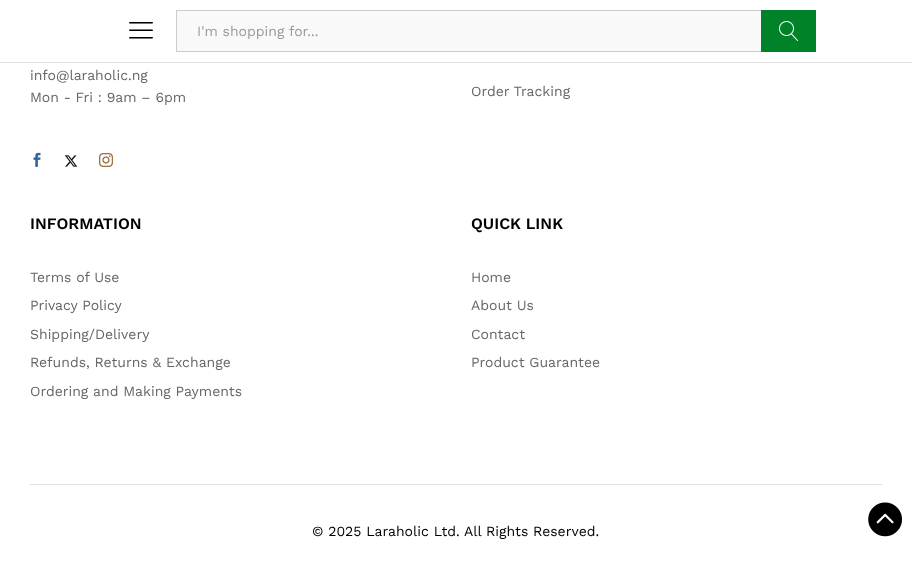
<svg xmlns="http://www.w3.org/2000/svg" width="912" height="562" viewBox="0 0 912 562">
  <rect width="100%" height="100%" fill="rgb(255,255,255)"/>
  <rect x="0" y="62" width="912" height="1" fill="rgb(225,225,225)"/>
  <image x="129" y="22" width="24" height="17" href="pic1.png"/>
  <rect x="177" y="11" width="584" height="40" fill="rgb(249,249,249)"/>
  <rect x="176" y="10" width="585" height="1" fill="rgb(204,204,204)"/>
  <rect x="176" y="51" width="585" height="1" fill="rgb(204,204,204)"/>
  <rect x="176" y="10" width="1" height="42" fill="rgb(204,204,204)"/>
  <text x="197" y="36" font-family="Work Sans" font-size="14" fill="rgb(153,153,153)">I'm shopping for...</text>
  <rect x="761" y="10" width="55" height="42" fill="rgb(0,131,40)"/>
  <image x="779" y="21" width="19" height="20" href="pic2.png"/>
  <g font-family="Work Sans" font-size="14" fill="rgb(102,102,102)">
    <text>
      <tspan x="30" y="80">info@laraholic.ng</tspan>
      <tspan x="30" y="102">Mon - Fri : 9am – 6pm</tspan>
    </text>
  </g>
  <image x="33" y="152" width="8" height="15" href="pic3.png"/>
  <image x="64" y="155" width="14" height="12" href="pic4.png"/>
  <image x="99" y="153" width="14" height="14" href="pic5.png"/>
  <text x="471" y="96" font-family="Work Sans" font-size="14" fill="rgb(102,102,102)">Order Tracking</text>
  <text x="30" y="229" font-family="Work Sans" font-size="16" font-weight="600" fill="rgb(0,0,0)">INFORMATION</text>
  <g font-family="Work Sans" font-size="14" fill="rgb(102,102,102)">
    <text x="30" y="282">Terms of Use</text>
    <text x="30" y="310">Privacy Policy</text>
    <text x="30" y="339">Shipping/Delivery</text>
    <text x="30" y="367">Refunds, Returns &amp; Exchange</text>
    <text x="30" y="396">Ordering and Making Payments</text>
  </g>
  <text x="471" y="229" font-family="Work Sans" font-size="16" font-weight="600" fill="rgb(0,0,0)">QUICK LINK</text>
  <g font-family="Work Sans" font-size="14" fill="rgb(102,102,102)">
    <text x="471" y="282">Home</text>
    <text x="471" y="310">About Us</text>
    <text x="471" y="339">Contact</text>
    <text x="471" y="367">Product Guarantee</text>
  </g>
  <rect x="30" y="484" width="852" height="1" fill="rgb(225,225,225)"/>
  <text x="312" y="536" font-family="Work Sans" font-size="14" fill="rgb(0,0,0)">© 2025 Laraholic Ltd. All Rights Reserved.</text>
  <image x="868" y="502" width="34" height="35" href="pic6.png"/>
</svg>
